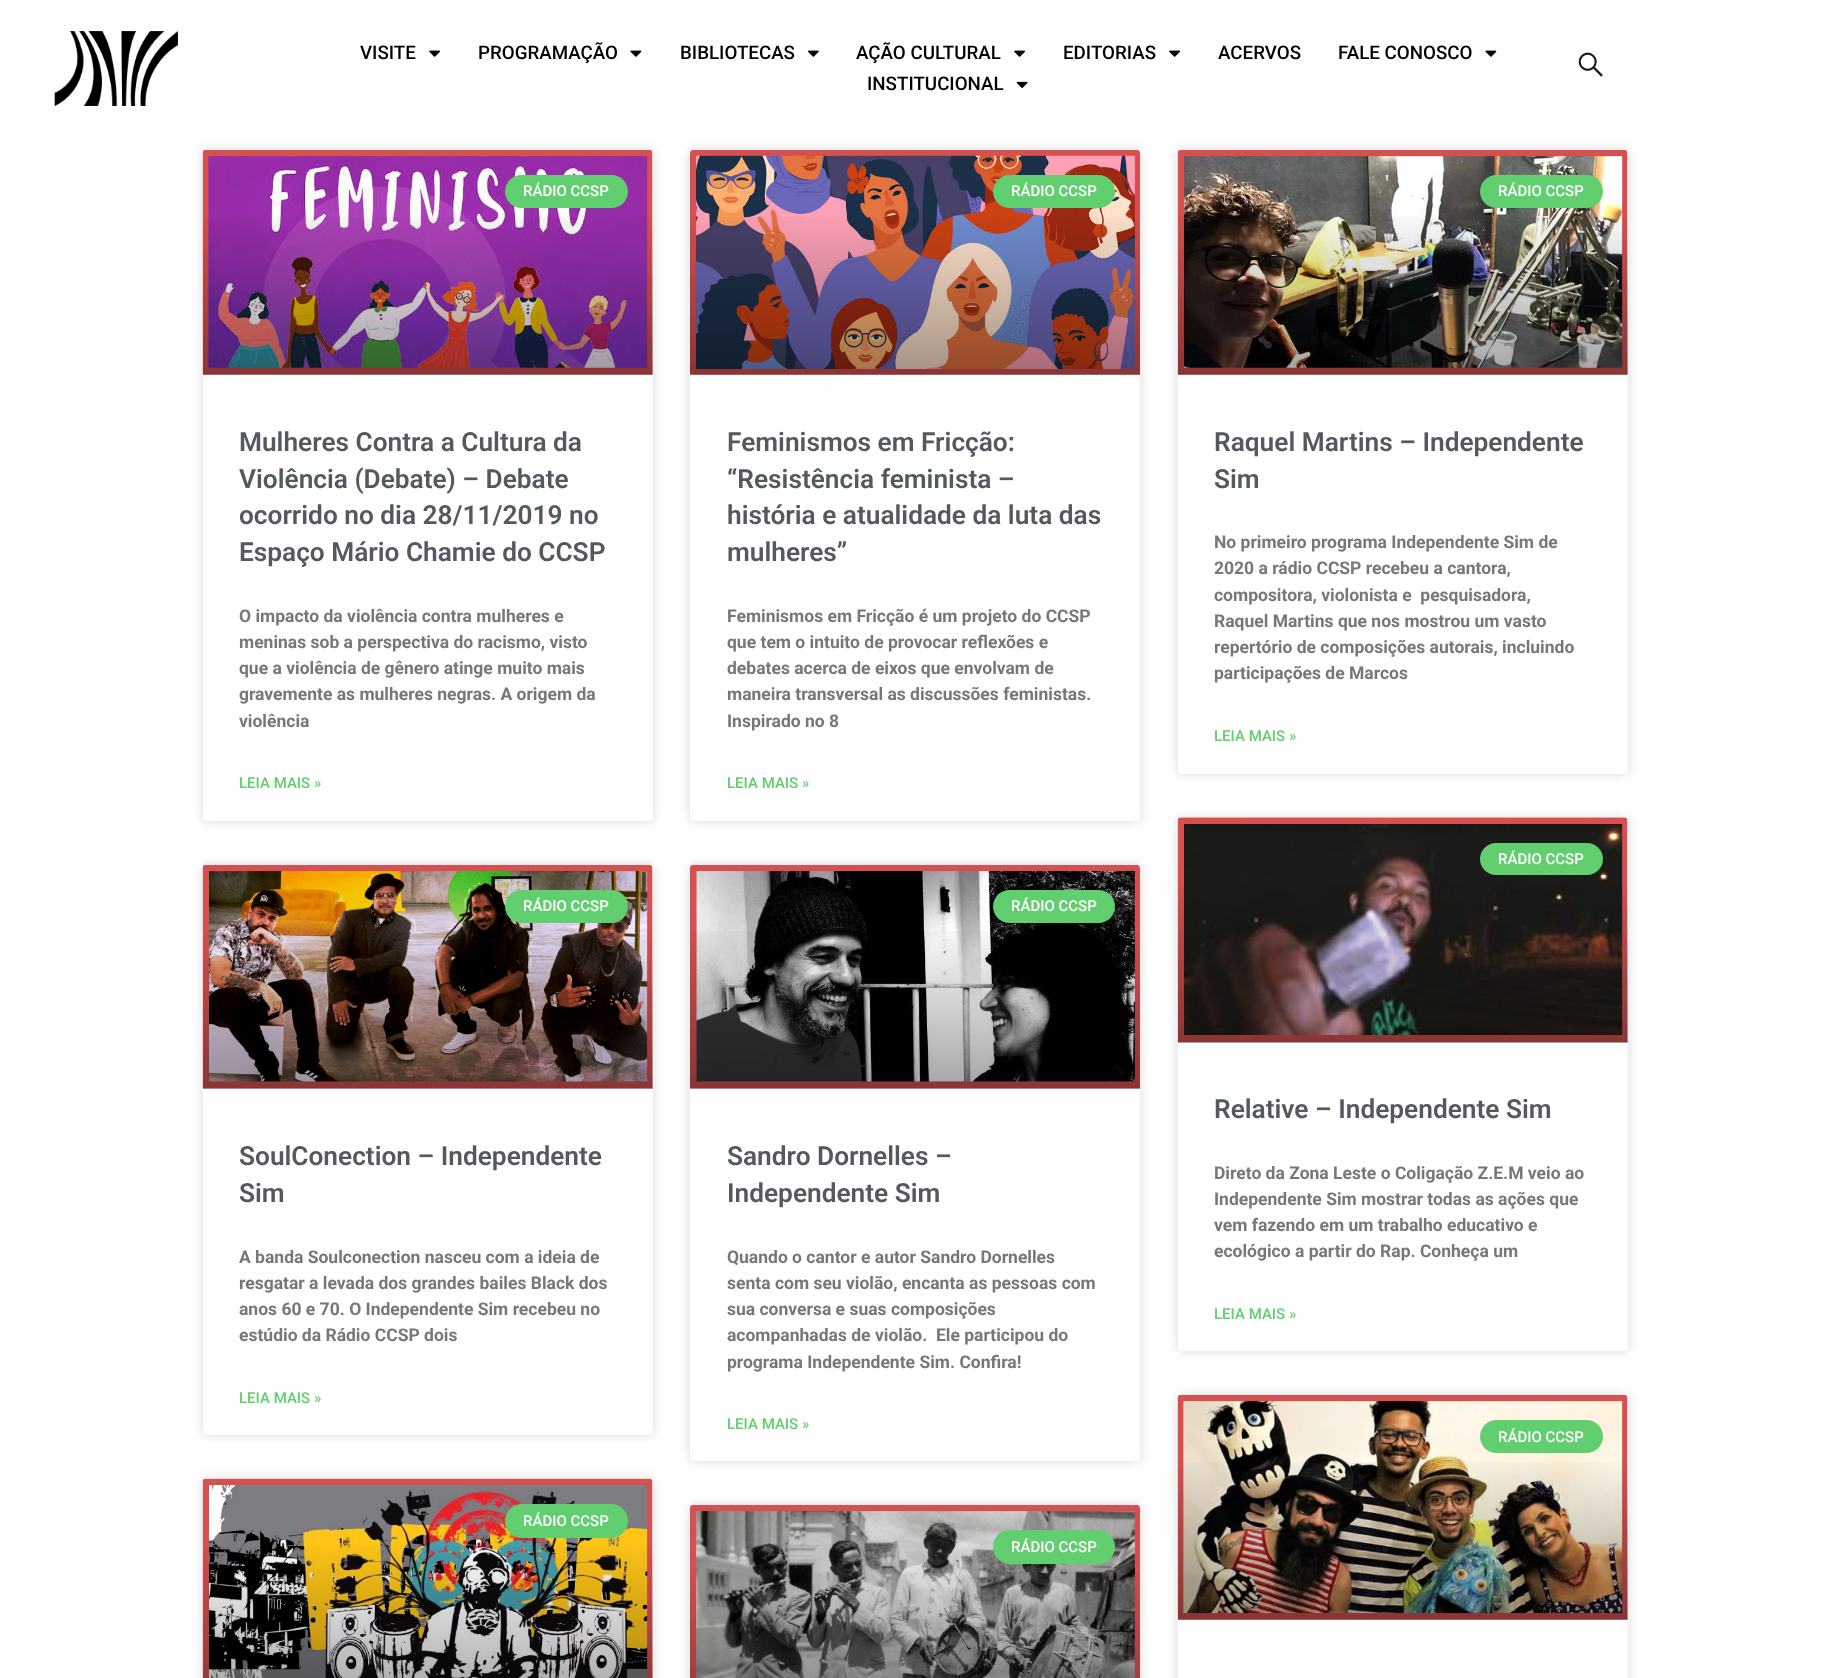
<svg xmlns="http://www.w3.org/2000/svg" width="1828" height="1678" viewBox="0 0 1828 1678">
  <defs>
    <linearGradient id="g1" gradientUnits="userSpaceOnUse" x1="428" y1="375" x2="428" y2="150"><stop offset="0" stop-color="rgb(0,0,0)" stop-opacity="0.35"/><stop offset="0.75" stop-color="rgb(0,0,0)" stop-opacity="0"/></linearGradient>
    <linearGradient id="g2" gradientUnits="userSpaceOnUse" x1="915" y1="375" x2="915" y2="150"><stop offset="0" stop-color="rgb(0,0,0)" stop-opacity="0.35"/><stop offset="0.75" stop-color="rgb(0,0,0)" stop-opacity="0"/></linearGradient>
    <linearGradient id="g3" gradientUnits="userSpaceOnUse" x1="1403" y1="375" x2="1403" y2="150"><stop offset="0" stop-color="rgb(0,0,0)" stop-opacity="0.35"/><stop offset="0.75" stop-color="rgb(0,0,0)" stop-opacity="0"/></linearGradient>
    <linearGradient id="g4" gradientUnits="userSpaceOnUse" x1="428" y1="1089" x2="428" y2="865"><stop offset="0" stop-color="rgb(0,0,0)" stop-opacity="0.35"/><stop offset="0.75" stop-color="rgb(0,0,0)" stop-opacity="0"/></linearGradient>
    <linearGradient id="g5" gradientUnits="userSpaceOnUse" x1="915" y1="1089" x2="915" y2="865"><stop offset="0" stop-color="rgb(0,0,0)" stop-opacity="0.35"/><stop offset="0.75" stop-color="rgb(0,0,0)" stop-opacity="0"/></linearGradient>
    <linearGradient id="g6" gradientUnits="userSpaceOnUse" x1="1403" y1="1043" x2="1403" y2="818"><stop offset="0" stop-color="rgb(0,0,0)" stop-opacity="0.35"/><stop offset="0.75" stop-color="rgb(0,0,0)" stop-opacity="0"/></linearGradient>
    <linearGradient id="g7" gradientUnits="userSpaceOnUse" x1="1403" y1="1620" x2="1403" y2="1395"><stop offset="0" stop-color="rgb(0,0,0)" stop-opacity="0.35"/><stop offset="0.75" stop-color="rgb(0,0,0)" stop-opacity="0"/></linearGradient>
    <linearGradient id="g8" gradientUnits="userSpaceOnUse" x1="428" y1="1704" x2="428" y2="1479"><stop offset="0" stop-color="rgb(0,0,0)" stop-opacity="0.35"/><stop offset="0.75" stop-color="rgb(0,0,0)" stop-opacity="0"/></linearGradient>
    <linearGradient id="g9" gradientUnits="userSpaceOnUse" x1="915" y1="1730" x2="915" y2="1505"><stop offset="0" stop-color="rgb(0,0,0)" stop-opacity="0.35"/><stop offset="0.75" stop-color="rgb(0,0,0)" stop-opacity="0"/></linearGradient>
  </defs>
  <rect width="100%" height="100%" fill="rgb(255,255,255)"/>
  <image x="54" y="31" width="124" height="75" href="pic1.png"/>
  <text x="360" y="59" font-family="Roboto" font-size="18.75" font-weight="500" fill="rgb(0,0,0)">VISITE</text>
  <image x="429" y="50" width="11" height="7" href="pic2.png"/>
  <text x="478" y="59" font-family="Roboto" font-size="18.75" font-weight="500" fill="rgb(0,0,0)">PROGRAMAÇÃO</text>
  <image x="630" y="50" width="12" height="7" href="pic3.png"/>
  <text x="680" y="59" font-family="Roboto" font-size="18.75" font-weight="500" fill="rgb(0,0,0)">BIBLIOTECAS</text>
  <image x="807" y="50" width="12" height="7" href="pic4.png"/>
  <text x="856" y="59" font-family="Roboto" font-size="18.75" font-weight="500" fill="rgb(0,0,0)">AÇÃO CULTURAL</text>
  <image x="1014" y="50" width="11" height="7" href="pic2.png"/>
  <text x="1063" y="59" font-family="Roboto" font-size="18.75" font-weight="500" fill="rgb(0,0,0)">EDITORIAS</text>
  <image x="1169" y="50" width="11" height="7" href="pic2.png"/>
  <g font-family="Roboto" font-size="18.75" font-weight="500" fill="rgb(0,0,0)">
    <text x="1218" y="59">ACERVOS</text>
    <text x="1338" y="59">FALE CONOSCO</text>
  </g>
  <image x="1485" y="50" width="12" height="7" href="pic3.png"/>
  <text x="867" y="90" font-family="Roboto" font-size="18.75" font-weight="500" fill="rgb(0,0,0)">INSTITUCIONAL</text>
  <image x="1016" y="81" width="12" height="7" href="pic5.png"/>
  <image x="1578" y="52" width="25" height="25" href="pic6.png"/>
  <rect x="203" y="150" width="450" height="671" rx="4" fill="rgba(0,0,0,0.15)" filter="blur(6px)"/>
  <rect x="203" y="150" width="450" height="671" rx="4" fill="rgb(255,255,255)"/>
  <image x="202" y="150" width="451" height="225" href="pic7.png"/>
  <rect x="203" y="217" width="450" height="158" fill="url(#g1)"/>
  <rect x="505" y="175" width="123" height="33" rx="16.5" fill="rgb(97,206,112)"/>
  <text x="523" y="196" font-family="Roboto" font-size="15" font-weight="500" fill="rgb(255,255,255)">RÁDIO CCSP</text>
  <g font-family="Roboto" font-size="26.25" font-weight="600" fill="rgb(84,89,95)">
    <text>
      <tspan x="239" y="451">Mulheres Contra a Cultura da</tspan>
      <tspan x="239" y="488">Violência (Debate) – Debate</tspan>
      <tspan x="239" y="524">ocorrido no dia 28/11/2019 no</tspan>
      <tspan x="239" y="561">Espaço Mário Chamie do CCSP</tspan>
    </text>
  </g>
  <g font-family="Roboto" font-size="17.5" font-weight="bold" fill="rgb(119,119,119)">
    <text>
      <tspan x="239" y="622">O impacto da violência contra mulheres e</tspan>
      <tspan x="239" y="648">meninas sob a perspectiva do racismo, visto</tspan>
      <tspan x="239" y="674">que a violência de gênero atinge muito mais</tspan>
      <tspan x="239" y="700">gravemente as mulheres negras. A origem da</tspan>
      <tspan x="239" y="727">violência</tspan>
    </text>
  </g>
  <text x="239" y="788" font-family="Roboto" font-size="15" font-weight="500" fill="rgb(97,206,112)">LEIA MAIS »</text>
  <rect x="690" y="150" width="450" height="671" rx="4" fill="rgba(0,0,0,0.15)" filter="blur(6px)"/>
  <rect x="690" y="150" width="450" height="671" rx="4" fill="rgb(255,255,255)"/>
  <image x="690" y="150" width="450" height="225" href="pic8.png"/>
  <rect x="690" y="217" width="450" height="158" fill="url(#g2)"/>
  <rect x="993" y="175" width="122" height="33" rx="16.5" fill="rgb(97,206,112)"/>
  <text x="1011" y="196" font-family="Roboto" font-size="15" font-weight="500" fill="rgb(255,255,255)">RÁDIO CCSP</text>
  <g font-family="Roboto" font-size="26.25" font-weight="600" fill="rgb(84,89,95)">
    <text>
      <tspan x="727" y="451">Feminismos em Fricção:</tspan>
      <tspan x="727" y="488">“Resistência feminista –</tspan>
      <tspan x="727" y="524">história e atualidade da luta das</tspan>
      <tspan x="727" y="561">mulheres”</tspan>
    </text>
  </g>
  <g font-family="Roboto" font-size="17.5" font-weight="bold" fill="rgb(119,119,119)">
    <text>
      <tspan x="727" y="622">Feminismos em Fricção é um projeto do CCSP</tspan>
      <tspan x="727" y="648">que tem o intuito de provocar reflexões e</tspan>
      <tspan x="727" y="674">debates acerca de eixos que envolvam de</tspan>
      <tspan x="727" y="700">maneira transversal as discussões feministas.</tspan>
      <tspan x="727" y="727">Inspirado no 8</tspan>
    </text>
  </g>
  <text x="727" y="788" font-family="Roboto" font-size="15" font-weight="500" fill="rgb(97,206,112)">LEIA MAIS »</text>
  <rect x="1178" y="150" width="450" height="624" rx="4" fill="rgba(0,0,0,0.15)" filter="blur(6px)"/>
  <rect x="1178" y="150" width="450" height="624" rx="4" fill="rgb(255,255,255)"/>
  <image x="1177" y="150" width="451" height="225" href="pic9.png"/>
  <rect x="1178" y="217" width="450" height="158" fill="url(#g3)"/>
  <rect x="1480" y="175" width="123" height="33" rx="16.5" fill="rgb(97,206,112)"/>
  <text x="1498" y="196" font-family="Roboto" font-size="15" font-weight="500" fill="rgb(255,255,255)">RÁDIO CCSP</text>
  <g font-family="Roboto" font-size="26.25" font-weight="600" fill="rgb(84,89,95)">
    <text>
      <tspan x="1214" y="451">Raquel Martins – Independente</tspan>
      <tspan x="1214" y="488">Sim</tspan>
    </text>
  </g>
  <g font-family="Roboto" font-size="17.5" font-weight="bold" fill="rgb(119,119,119)">
    <text xml:space="preserve"><tspan x="1214" y="548">No primeiro programa Independente Sim de</tspan><tspan x="1214" y="574">2020 a rádio CCSP recebeu a cantora,</tspan><tspan x="1214" y="601">compositora, violonista e  pesquisadora,</tspan><tspan x="1214" y="627">Raquel Martins que nos mostrou um vasto</tspan><tspan x="1214" y="653">repertório de composições autorais, incluindo</tspan><tspan x="1214" y="679">participações de Marcos</tspan></text>
  </g>
  <text x="1214" y="741" font-family="Roboto" font-size="15" font-weight="500" fill="rgb(97,206,112)">LEIA MAIS »</text>
  <rect x="203" y="865" width="450" height="570" rx="4" fill="rgba(0,0,0,0.15)" filter="blur(6px)"/>
  <rect x="203" y="865" width="450" height="570" rx="4" fill="rgb(255,255,255)"/>
  <image x="202" y="865" width="451" height="224" href="pic10.png"/>
  <rect x="203" y="931" width="450" height="158" fill="url(#g4)"/>
  <rect x="505" y="890" width="123" height="33" rx="16.5" fill="rgb(97,206,112)"/>
  <text x="523" y="911" font-family="Roboto" font-size="15" font-weight="500" fill="rgb(255,255,255)">RÁDIO CCSP</text>
  <g font-family="Roboto" font-size="26.25" font-weight="600" fill="rgb(84,89,95)">
    <text>
      <tspan x="239" y="1165">SoulConection – Independente</tspan>
      <tspan x="239" y="1202">Sim</tspan>
    </text>
  </g>
  <g font-family="Roboto" font-size="17.5" font-weight="bold" fill="rgb(119,119,119)">
    <text>
      <tspan x="239" y="1263">A banda Soulconection nasceu com a ideia de</tspan>
      <tspan x="239" y="1289">resgatar a levada dos grandes bailes Black dos</tspan>
      <tspan x="239" y="1315">anos 60 e 70. O Independente Sim recebeu no</tspan>
      <tspan x="239" y="1341">estúdio da Rádio CCSP dois</tspan>
    </text>
  </g>
  <text x="239" y="1403" font-family="Roboto" font-size="15" font-weight="500" fill="rgb(97,206,112)">LEIA MAIS »</text>
  <rect x="690" y="865" width="450" height="596" rx="4" fill="rgba(0,0,0,0.15)" filter="blur(6px)"/>
  <rect x="690" y="865" width="450" height="596" rx="4" fill="rgb(255,255,255)"/>
  <image x="690" y="865" width="450" height="224" href="pic11.png"/>
  <rect x="690" y="931" width="450" height="158" fill="url(#g5)"/>
  <rect x="993" y="890" width="122" height="33" rx="16.5" fill="rgb(97,206,112)"/>
  <text x="1011" y="911" font-family="Roboto" font-size="15" font-weight="500" fill="rgb(255,255,255)">RÁDIO CCSP</text>
  <g font-family="Roboto" font-size="26.25" font-weight="600" fill="rgb(84,89,95)">
    <text>
      <tspan x="727" y="1165">Sandro Dornelles –</tspan>
      <tspan x="727" y="1202">Independente Sim</tspan>
    </text>
  </g>
  <g font-family="Roboto" font-size="17.5" font-weight="bold" fill="rgb(119,119,119)">
    <text xml:space="preserve"><tspan x="727" y="1263">Quando o cantor e autor Sandro Dornelles</tspan><tspan x="727" y="1289">senta com seu violão, encanta as pessoas com</tspan><tspan x="727" y="1315">sua conversa e suas composições</tspan><tspan x="727" y="1341">acompanhadas de violão.  Ele participou do</tspan><tspan x="727" y="1368">programa Independente Sim. Confira!</tspan></text>
  </g>
  <text x="727" y="1429" font-family="Roboto" font-size="15" font-weight="500" fill="rgb(97,206,112)">LEIA MAIS »</text>
  <rect x="1178" y="818" width="450" height="533" rx="4" fill="rgba(0,0,0,0.15)" filter="blur(6px)"/>
  <rect x="1178" y="818" width="450" height="533" rx="4" fill="rgb(255,255,255)"/>
  <image x="1177" y="817" width="451" height="226" href="pic12.png"/>
  <rect x="1178" y="885" width="450" height="158" fill="url(#g6)"/>
  <rect x="1480" y="843" width="123" height="32" rx="16" fill="rgb(97,206,112)"/>
  <text x="1498" y="864" font-family="Roboto" font-size="15" font-weight="500" fill="rgb(255,255,255)">RÁDIO CCSP</text>
  <text x="1214" y="1118" font-family="Roboto" font-size="26.25" font-weight="600" fill="rgb(84,89,95)">Relative – Independente Sim</text>
  <g font-family="Roboto" font-size="17.5" font-weight="bold" fill="rgb(119,119,119)">
    <text>
      <tspan x="1214" y="1179">Direto da Zona Leste o Coligação Z.E.M veio ao</tspan>
      <tspan x="1214" y="1205">Independente Sim mostrar todas as ações que</tspan>
      <tspan x="1214" y="1231">vem fazendo em um trabalho educativo e</tspan>
      <tspan x="1214" y="1257">ecológico a partir do Rap. Conheça um</tspan>
    </text>
  </g>
  <text x="1214" y="1319" font-family="Roboto" font-size="15" font-weight="500" fill="rgb(97,206,112)">LEIA MAIS »</text>
  <rect x="1178" y="1395" width="450" height="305" rx="4" fill="rgba(0,0,0,0.15)" filter="blur(6px)"/>
  <rect x="1178" y="1395" width="450" height="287" rx="4" fill="rgb(255,255,255)"/>
  <image x="1177" y="1395" width="451" height="225" href="pic13.png"/>
  <rect x="1178" y="1462" width="450" height="158" fill="url(#g7)"/>
  <rect x="1480" y="1420" width="123" height="33" rx="16.5" fill="rgb(97,206,112)"/>
  <text x="1498" y="1442" font-family="Roboto" font-size="15" font-weight="500" fill="rgb(255,255,255)">RÁDIO CCSP</text>
  <rect x="203" y="1479" width="450" height="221" rx="4" fill="rgba(0,0,0,0.15)" filter="blur(6px)"/>
  <rect x="203" y="1479" width="450" height="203" rx="4" fill="rgb(255,255,255)"/>
  <image x="202" y="1478" width="451" height="200" href="pic14.png"/>
  <rect x="203" y="1546" width="450" height="132" fill="url(#g8)"/>
  <rect x="505" y="1504" width="123" height="34" rx="17" fill="rgb(97,206,112)"/>
  <text x="523" y="1526" font-family="Roboto" font-size="15" font-weight="500" fill="rgb(255,255,255)">RÁDIO CCSP</text>
  <rect x="690" y="1505" width="450" height="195" rx="4" fill="rgba(0,0,0,0.15)" filter="blur(6px)"/>
  <image x="690" y="1505" width="450" height="173" href="pic15.png"/>
  <rect x="690" y="1572" width="450" height="106" fill="url(#g9)"/>
  <rect x="993" y="1530" width="122" height="34" rx="17" fill="rgb(97,206,112)"/>
  <text x="1011" y="1552" font-family="Roboto" font-size="15" font-weight="500" fill="rgb(255,255,255)">RÁDIO CCSP</text>
</svg>
